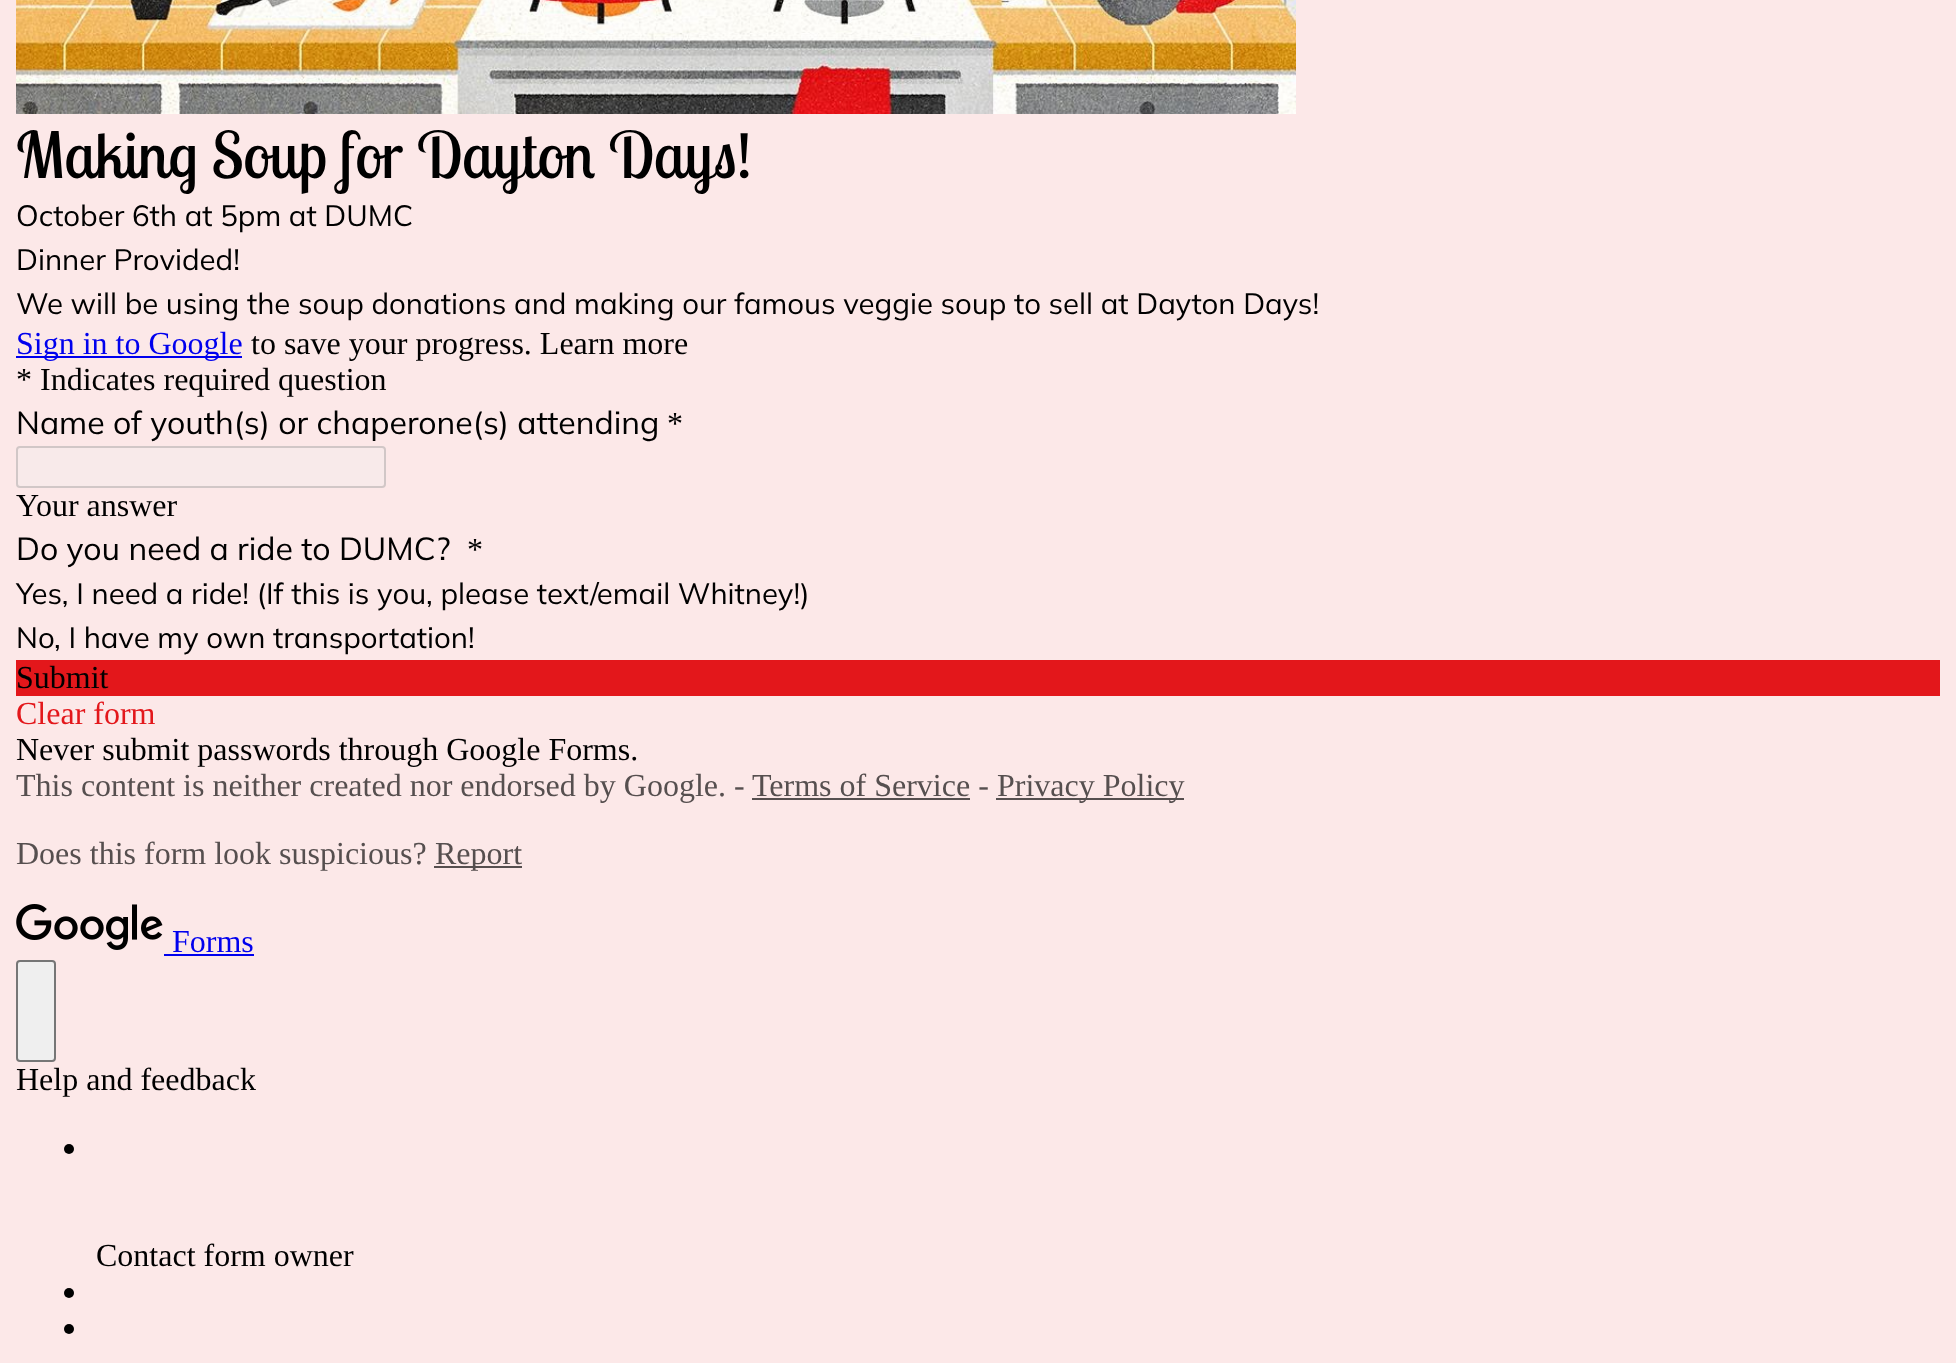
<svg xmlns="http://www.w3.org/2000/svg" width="1956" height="1363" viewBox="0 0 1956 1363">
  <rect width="100%" height="100%" fill="rgb(252,232,232)"/>
  <image x="16" y="0" width="1280" height="114" href="pic1.png"/>
  <text x="16" y="178" font-family="Lobster Two" font-size="64" fill="rgb(0,0,0)">Making Soup for Dayton Days!</text>
  <g font-family="Mulish" font-size="29.35" fill="rgb(0,0,0)">
    <text>
      <tspan x="16" y="226">October 6th at 5pm at DUMC</tspan>
      <tspan x="16" y="270">Dinner Provided!</tspan>
      <tspan x="16" y="314">We will be using the soup donations and making our famous veggie soup to sell at Dayton Days!</tspan>
    </text>
  </g>
  <rect x="16" y="356" width="226" height="2" fill="rgb(0,0,238)"/>
  <text x="16" y="354" font-family="Liberation Serif" font-size="32" fill="rgb(0,0,238)">Sign in to Google</text>
  <g font-family="Liberation Serif" font-size="32" fill="rgb(0,0,0)">
    <text x="251" y="354">to save your progress. Learn more</text>
    <text x="16" y="390">* Indicates required question</text>
  </g>
  <text x="16" y="434" font-family="Mulish" font-size="32" fill="rgb(0,0,0)">Name of youth(s) or chaperone(s) attending</text>
  <text x="667" y="434" font-family="Liberation Serif" font-size="32" fill="rgb(0,0,0)">*</text>
  <rect x="17" y="447" width="368" height="40" rx="3" fill="rgb(248,234,234)" stroke="rgb(209,199,199)" stroke-width="2"/>
  <text x="16" y="516" font-family="Liberation Serif" font-size="32" fill="rgb(0,0,0)">Your answer</text>
  <text x="16" y="560" font-family="Mulish" font-size="32" fill="rgb(0,0,0)">Do you need a ride to DUMC?</text>
  <text x="467" y="560" font-family="Liberation Serif" font-size="32" fill="rgb(0,0,0)">*</text>
  <g font-family="Mulish" font-size="29.35" fill="rgb(0,0,0)">
    <text>
      <tspan x="16" y="604">Yes, I need a ride! (If this is you, please text/email Whitney!)</tspan>
      <tspan x="16" y="648">No, I have my own transportation!</tspan>
    </text>
  </g>
  <rect x="16" y="660" width="1924" height="36" fill="rgb(227,23,27)"/>
  <text x="16" y="688" font-family="Liberation Serif" font-size="32" fill="rgb(0,0,0)">Submit</text>
  <text x="16" y="724" font-family="Liberation Serif" font-size="32" fill="rgb(227,23,27)">Clear form</text>
  <text x="16" y="760" font-family="Liberation Serif" font-size="32" fill="rgb(0,0,0)">Never submit passwords through Google Forms.</text>
  <g font-family="Liberation Serif" font-size="32" fill="rgb(86,79,79)">
    <text x="16" y="796">This content is neither created nor endorsed by Google. -</text>
    <text x="752" y="796">Terms of Service -</text>
  </g>
  <rect x="752" y="798" width="218" height="2" fill="rgb(86,79,79)"/>
  <rect x="996" y="798" width="188" height="2" fill="rgb(86,79,79)"/>
  <g font-family="Liberation Serif" font-size="32" fill="rgb(86,79,79)">
    <text x="997" y="796">Privacy Policy</text>
    <text x="16" y="864">Does this form look suspicious?</text>
  </g>
  <rect x="434" y="866" width="88" height="2" fill="rgb(86,79,79)"/>
  <text x="435" y="864" font-family="Liberation Serif" font-size="32" fill="rgb(86,79,79)">Report</text>
  <image x="16" y="904" width="147" height="46" href="pic2.png"/>
  <text x="172" y="952" font-family="Liberation Serif" font-size="32" fill="rgb(0,0,238)">Forms</text>
  <rect x="164" y="954" width="90" height="2" fill="rgb(0,0,238)"/>
  <rect x="17" y="961" width="38" height="100" rx="3" fill="rgb(239,239,239)" stroke="rgb(118,118,118)" stroke-width="2"/>
  <text x="16" y="1090" font-family="Liberation Serif" font-size="32" fill="rgb(0,0,0)">Help and feedback</text>
  <circle cx="69" cy="1149" r="5" fill="rgb(0,0,0)"/>
  <text x="96" y="1266" font-family="Liberation Serif" font-size="32" fill="rgb(0,0,0)">Contact form owner</text>
  <circle cx="69" cy="1293" r="5" fill="rgb(0,0,0)"/>
  <circle cx="69" cy="1329" r="5" fill="rgb(0,0,0)"/>
</svg>
